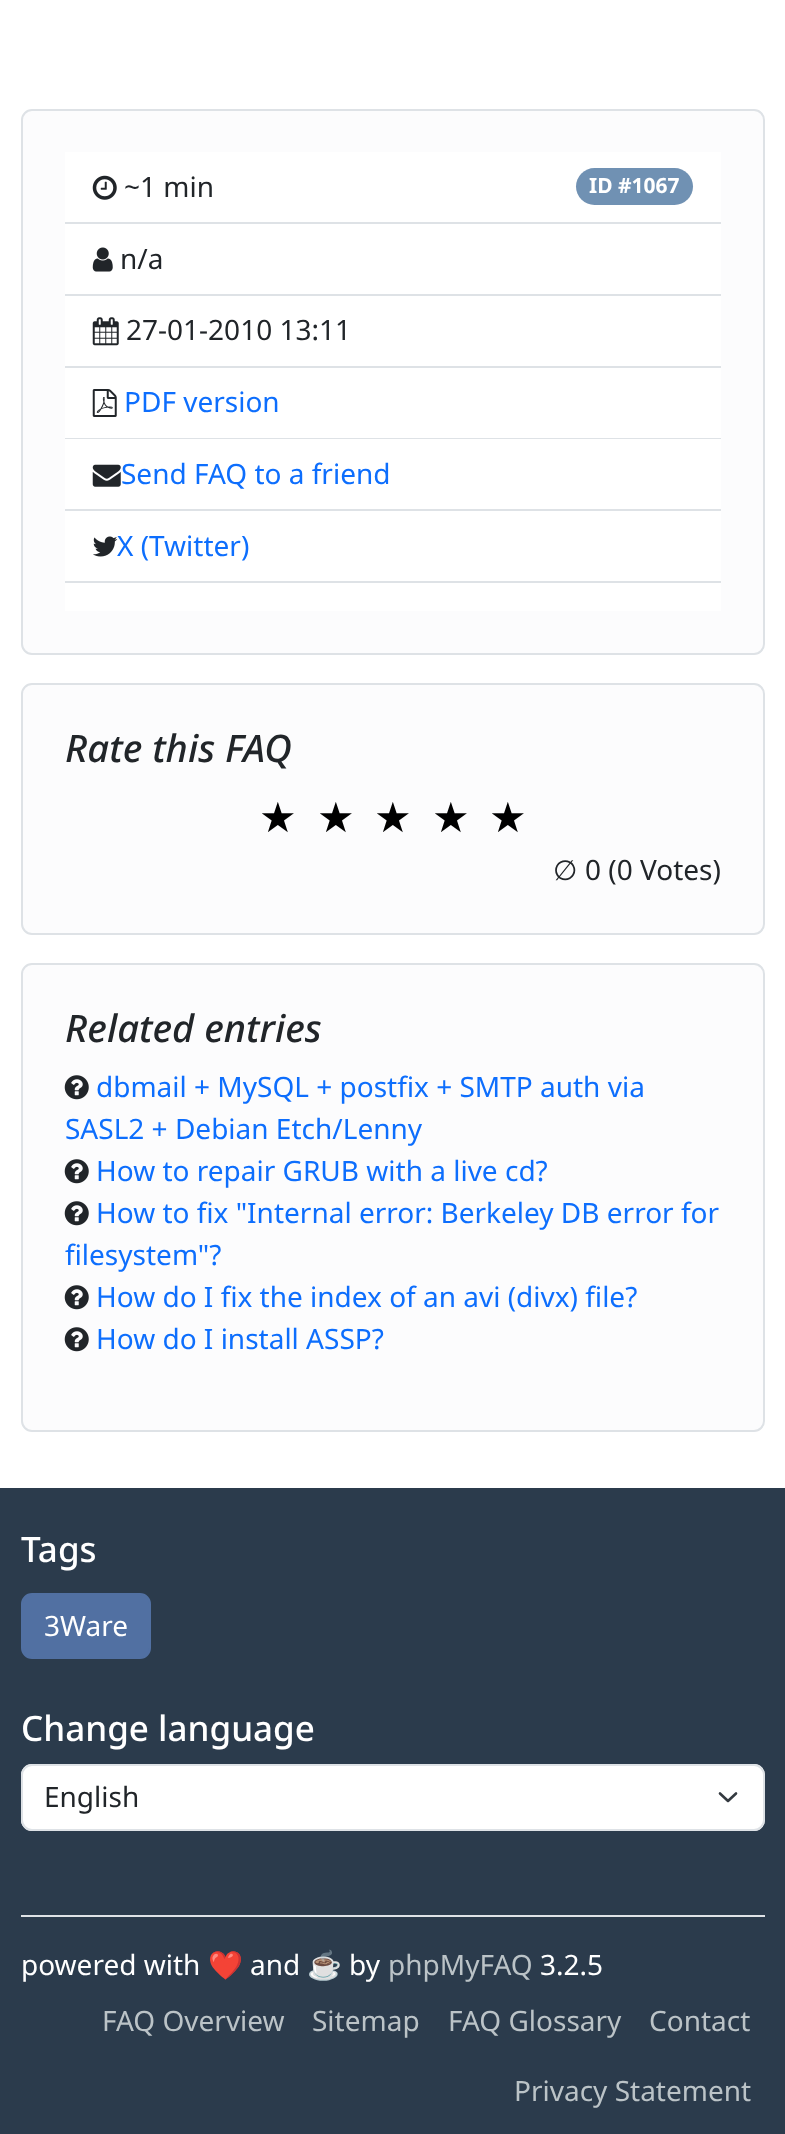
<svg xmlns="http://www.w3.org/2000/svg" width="785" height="2134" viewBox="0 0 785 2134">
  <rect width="100%" height="100%" fill="rgb(255,255,255)"/>
  <rect x="22" y="110" width="742" height="544" rx="10" fill="rgb(252,252,253)" stroke="rgb(222,226,230)" stroke-width="2"/>
  <rect x="65" y="152" width="656" height="70" fill="rgb(255,255,255)"/>
  <rect x="65" y="222" width="656" height="2" fill="rgb(222,226,230)"/>
  <image x="92" y="175" width="25" height="25" href="pic1.png"/>
  <text x="124" y="197" font-family="Noto Sans" font-size="28" fill="rgb(33,37,41)">~1 min</text>
  <rect x="576" y="168" width="117" height="37" rx="18.5" fill="rgb(112,145,179)"/>
  <text x="589" y="193" font-family="Noto Sans" font-size="21" font-weight="bold" fill="rgb(255,255,255)">ID #1067</text>
  <rect x="65" y="224" width="656" height="70" fill="rgb(255,255,255)"/>
  <rect x="65" y="294" width="656" height="2" fill="rgb(222,226,230)"/>
  <image x="92" y="247" width="21" height="25" href="pic2.png"/>
  <text x="120" y="269" font-family="Noto Sans" font-size="28" fill="rgb(33,37,41)">n/a</text>
  <rect x="65" y="296" width="656" height="70" fill="rgb(255,255,255)"/>
  <rect x="65" y="366" width="656" height="2" fill="rgb(222,226,230)"/>
  <image x="92" y="317" width="27" height="29" href="pic3.png"/>
  <text x="126" y="340" font-family="Noto Sans" font-size="28" fill="rgb(33,37,41)">27-01-2010 13:11</text>
  <rect x="65" y="368" width="656" height="70" fill="rgb(255,255,255)"/>
  <rect x="65" y="438" width="656" height="1" fill="rgb(222,226,230)"/>
  <image x="92" y="389" width="25" height="28" href="pic4.png"/>
  <text x="124" y="412" font-family="Noto Sans" font-size="28" fill="rgb(13,110,253)">PDF version</text>
  <rect x="65" y="439" width="656" height="70" fill="rgb(255,255,255)"/>
  <rect x="65" y="509" width="656" height="2" fill="rgb(222,226,230)"/>
  <image x="92" y="464" width="29" height="23" href="pic5.png"/>
  <text x="121" y="484" font-family="Noto Sans" font-size="28" fill="rgb(13,110,253)">Send FAQ to a friend</text>
  <rect x="65" y="511" width="656" height="70" fill="rgb(255,255,255)"/>
  <rect x="65" y="581" width="656" height="2" fill="rgb(222,226,230)"/>
  <image x="93" y="536" width="25" height="21" href="pic6.png"/>
  <text x="117" y="556" font-family="Noto Sans" font-size="28" fill="rgb(13,110,253)">X (Twitter)</text>
  <rect x="65" y="583" width="656" height="28" fill="rgb(255,255,255)"/>
  <rect x="22" y="684" width="742" height="250" rx="10" fill="rgb(252,252,253)" stroke="rgb(222,226,230)" stroke-width="2"/>
  <text x="65" y="762" font-family="Noto Sans" font-size="38" font-weight="500" font-style="italic" fill="rgb(33,37,41)">Rate this FAQ</text>
  <g font-family="DejaVu Sans" font-size="42" fill="rgb(0,0,0)">
    <text x="259" y="832">★</text>
    <text x="317" y="832">★</text>
    <text x="374" y="832">★</text>
    <text x="432" y="832">★</text>
    <text x="489" y="832">★</text>
  </g>
  <text x="553" y="880" font-family="DejaVu Sans" font-size="28" fill="rgb(33,37,41)">∅</text>
  <text x="585" y="880" font-family="Noto Sans" font-size="28" fill="rgb(33,37,41)">0 (0 Votes)</text>
  <rect x="22" y="964" width="742" height="467" rx="10" fill="rgb(252,252,253)" stroke="rgb(222,226,230)" stroke-width="2"/>
  <text x="65" y="1042" font-family="Noto Sans" font-size="38" font-weight="500" font-style="italic" fill="rgb(33,37,41)">Related entries</text>
  <image x="64" y="1075" width="25" height="25" href="pic7.png"/>
  <g font-family="Noto Sans" font-size="28" fill="rgb(13,110,253)">
    <text x="96" y="1097">dbmail + MySQL + postfix + SMTP auth via</text>
    <text x="65" y="1139">SASL2 + Debian Etch/Lenny</text>
  </g>
  <image x="64" y="1159" width="25" height="25" href="pic7.png"/>
  <text x="96" y="1181" font-family="Noto Sans" font-size="28" fill="rgb(13,110,253)">How to repair GRUB with a live cd?</text>
  <image x="64" y="1201" width="25" height="25" href="pic7.png"/>
  <g font-family="Noto Sans" font-size="28" fill="rgb(13,110,253)">
    <text x="96" y="1223">How to fix "Internal error: Berkeley DB error for</text>
    <text x="65" y="1265">filesystem"?</text>
  </g>
  <image x="64" y="1285" width="25" height="25" href="pic7.png"/>
  <text x="96" y="1307" font-family="Noto Sans" font-size="28" fill="rgb(13,110,253)">How do I fix the index of an avi (divx) file?</text>
  <image x="64" y="1327" width="25" height="25" href="pic7.png"/>
  <text x="96" y="1349" font-family="Noto Sans" font-size="28" fill="rgb(13,110,253)">How do I install ASSP?</text>
  <rect x="0" y="1488" width="785" height="646" fill="rgb(43,59,76)"/>
  <text x="21" y="1562" font-family="Noto Sans" font-size="35" font-weight="500" fill="rgb(255,255,255)">Tags</text>
  <rect x="22" y="1594" width="128" height="64" rx="10" fill="rgb(81,112,162)" stroke="rgb(81,112,162)" stroke-width="2"/>
  <text x="44" y="1636" font-family="Noto Sans" font-size="28" fill="rgb(255,255,255)">3Ware</text>
  <text x="21" y="1741" font-family="Noto Sans" font-size="35" font-weight="500" fill="rgb(255,255,255)">Change language</text>
  <rect x="21" y="1764" width="744" height="67" rx="11" fill="rgb(255,255,255)"/>
  <path d="M720 1793.5L728 1801L736 1793.5" fill="none" stroke="rgb(52,58,64)" stroke-width="2.6" stroke-linecap="round" stroke-linejoin="round"/>
  <rect x="22" y="1765" width="742" height="65" rx="10" fill="none" stroke="rgb(222,226,230)" stroke-width="2"/>
  <text x="44" y="1807" font-family="Noto Sans" font-size="28" fill="rgb(33,37,41)">English</text>
  <rect x="21" y="1915" width="744" height="2" fill="rgb(222,226,230)"/>
  <text x="21" y="1975" font-family="Noto Sans" font-size="28" fill="rgb(255,255,255)">powered with</text>
  <text x="208" y="1975" font-family="Noto Color Emoji" font-size="28" fill="rgb(255,255,255)">❤️</text>
  <text x="250" y="1975" font-family="Noto Sans" font-size="28" fill="rgb(255,255,255)">and</text>
  <text x="307" y="1975" font-family="Noto Color Emoji" font-size="28" fill="rgb(255,255,255)">☕️</text>
  <text x="349" y="1975" font-family="Noto Sans" font-size="28" fill="rgb(255,255,255)">by</text>
  <text x="388" y="1975" font-family="Noto Sans" font-size="28" fill="rgb(187,195,199)">phpMyFAQ</text>
  <text x="540" y="1975" font-family="Noto Sans" font-size="28" fill="rgb(255,255,255)">3.2.5</text>
  <g font-family="Noto Sans" font-size="28" fill="rgb(187,195,199)">
    <text x="102" y="2031">FAQ Overview</text>
    <text x="312" y="2031">Sitemap</text>
    <text x="448" y="2031">FAQ Glossary</text>
    <text x="649" y="2031">Contact</text>
    <text x="514" y="2101">Privacy Statement</text>
  </g>
</svg>
